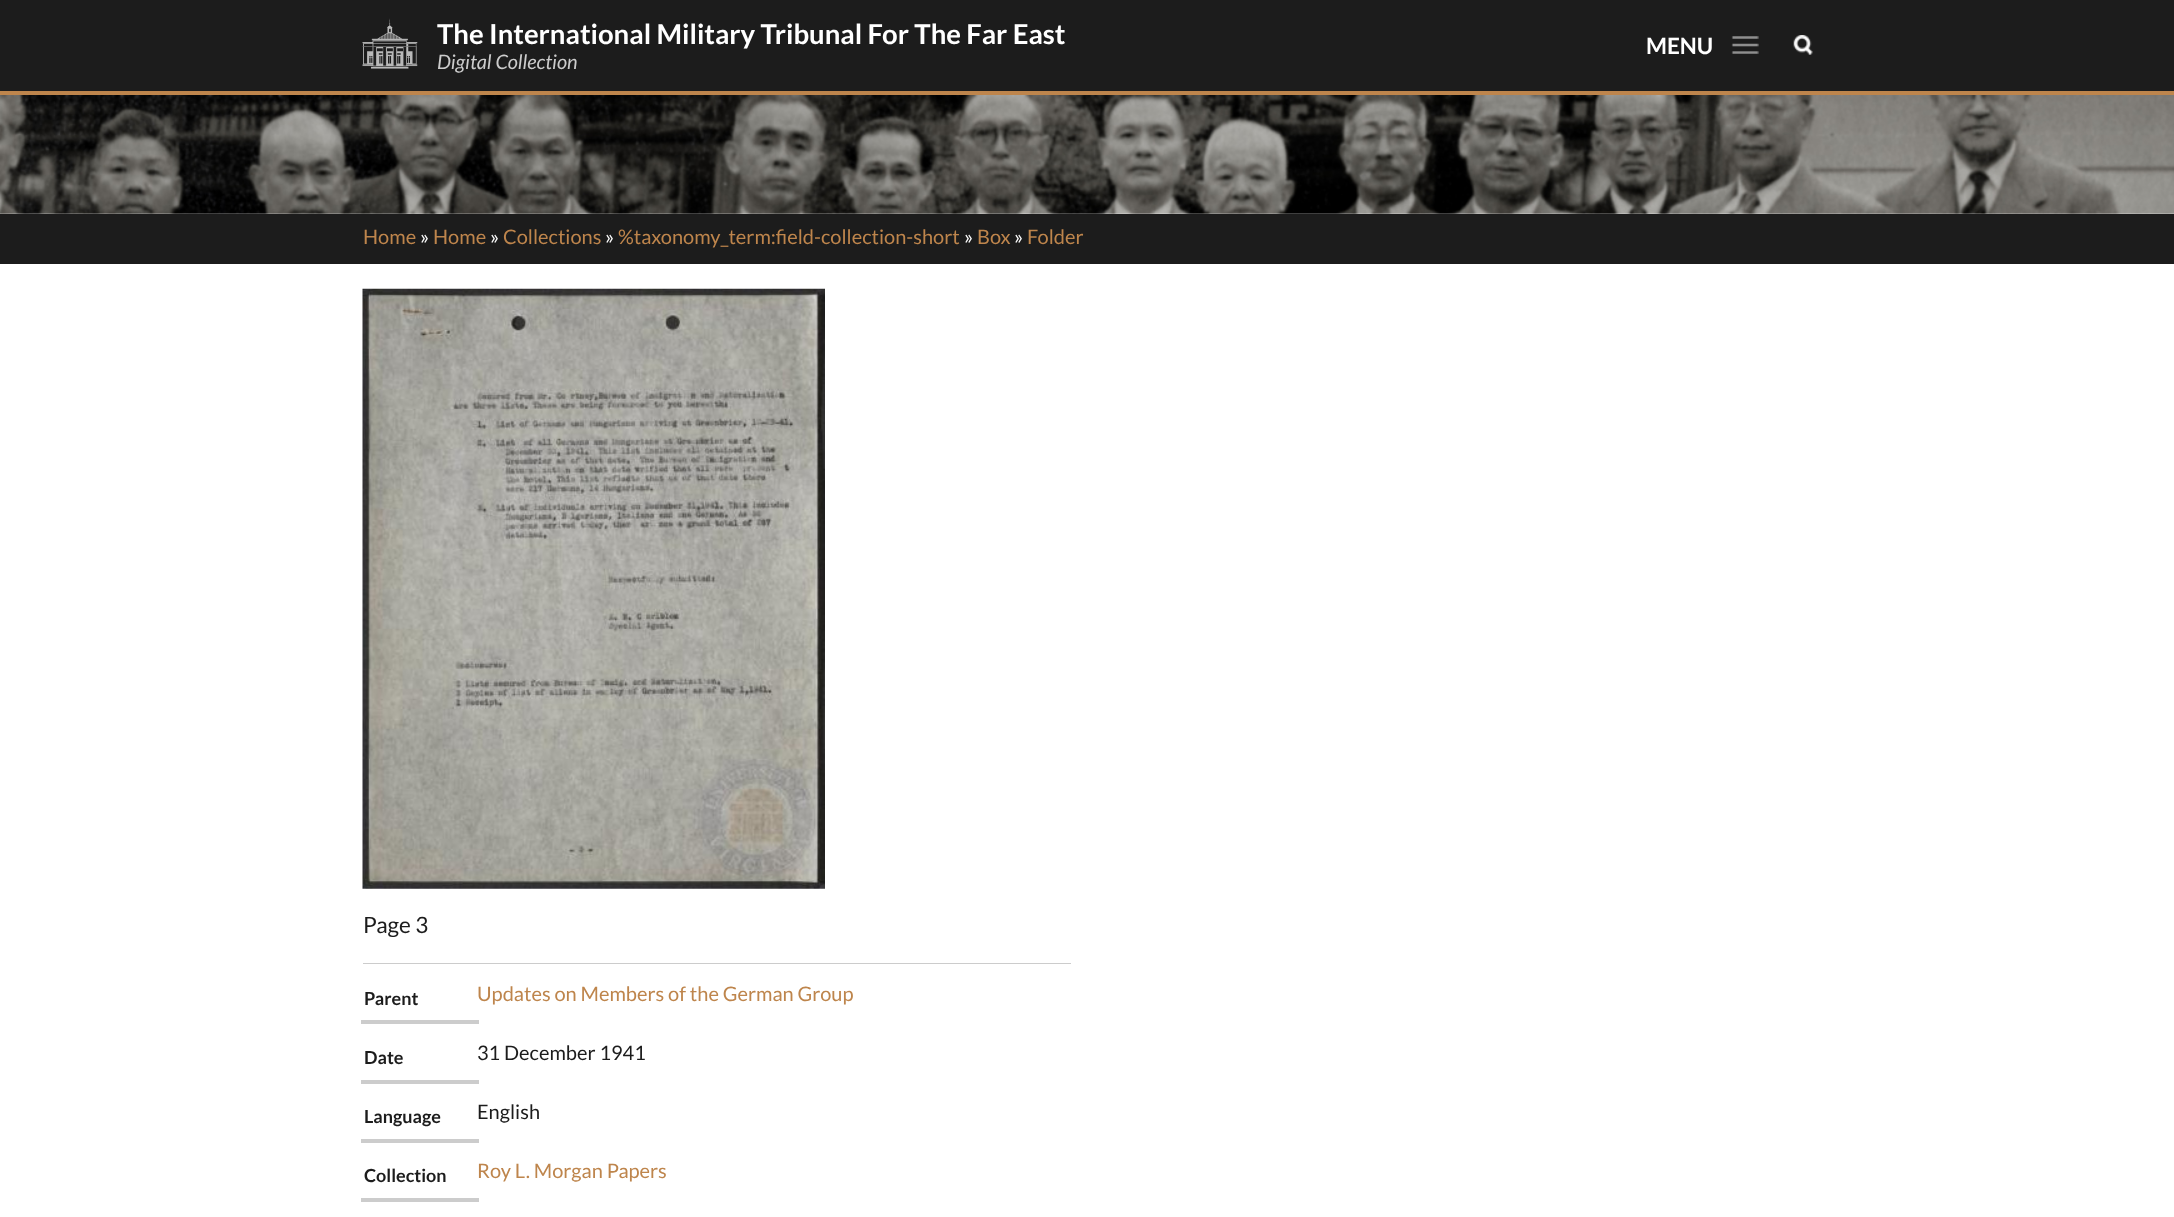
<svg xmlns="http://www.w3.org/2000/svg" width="2174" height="1217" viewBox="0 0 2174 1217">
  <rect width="100%" height="100%" fill="rgb(255,255,255)"/>
  <rect x="0" y="0" width="2174" height="91" fill="rgb(28,28,28)"/>
  <rect x="0" y="91" width="2174" height="4" fill="rgb(190,133,76)"/>
  <image x="362" y="18" width="56" height="51" href="pic1.png"/>
  <text x="437" y="44" font-family="Lato" font-size="27.5" font-weight="bold" fill="rgb(255,255,255)">The International Military Tribunal For The Far East</text>
  <text x="437" y="69" font-family="Lato" font-size="20" font-style="italic" fill="rgb(204,204,204)">Digital Collection</text>
  <image x="1731" y="36" width="28" height="18" href="pic2.png"/>
  <text x="1646" y="54" font-family="Lato" font-size="22.5" font-weight="bold" fill="rgb(255,255,255)">MENU</text>
  <image x="1793" y="35" width="20" height="20" href="pic3.png"/>
  <image x="0" y="95" width="2174" height="119" href="pic4.png"/>
  <rect x="0" y="214" width="2174" height="50" fill="rgb(28,28,28)"/>
  <text x="363" y="244" font-family="Lato" font-size="20" fill="rgb(190,133,76)">Home</text>
  <text x="420" y="244" font-family="Lato" font-size="20" fill="rgb(255,255,255)">»</text>
  <text x="433" y="244" font-family="Lato" font-size="20" fill="rgb(190,133,76)">Home</text>
  <text x="490" y="244" font-family="Lato" font-size="20" fill="rgb(255,255,255)">»</text>
  <text x="503" y="244" font-family="Lato" font-size="20" fill="rgb(190,133,76)">Collections</text>
  <text x="605" y="244" font-family="Lato" font-size="20" fill="rgb(255,255,255)">»</text>
  <text x="618" y="244" font-family="Lato" font-size="20" fill="rgb(190,133,76)">%taxonomy_term:field-collection-short</text>
  <text x="964" y="244" font-family="Lato" font-size="20" fill="rgb(255,255,255)">»</text>
  <text x="977" y="244" font-family="Lato" font-size="20" fill="rgb(190,133,76)">Box</text>
  <text x="1014" y="244" font-family="Lato" font-size="20" fill="rgb(255,255,255)">»</text>
  <text x="1027" y="244" font-family="Lato" font-size="20" fill="rgb(190,133,76)">Folder</text>
  <image x="362" y="288" width="463" height="601" href="pic5.png"/>
  <text x="363" y="933" font-family="Lato" font-size="22.5" fill="rgb(28,28,28)">Page 3</text>
  <rect x="363" y="963" width="708" height="1" fill="rgb(204,204,204)"/>
  <rect x="361" y="1020" width="118" height="4" fill="rgb(204,204,204)"/>
  <text x="364" y="1005" font-family="Lato" font-size="18" font-weight="bold" fill="rgb(28,28,28)">Parent</text>
  <text x="477" y="1001" font-family="Lato" font-size="20" fill="rgb(190,133,76)">Updates on Members of the German Group</text>
  <rect x="361" y="1080" width="118" height="4" fill="rgb(204,204,204)"/>
  <text x="364" y="1064" font-family="Lato" font-size="18" font-weight="bold" fill="rgb(28,28,28)">Date</text>
  <text x="477" y="1060" font-family="Lato" font-size="20" fill="rgb(28,28,28)">31 December 1941</text>
  <rect x="361" y="1139" width="118" height="4" fill="rgb(204,204,204)"/>
  <text x="364" y="1123" font-family="Lato" font-size="18" font-weight="bold" fill="rgb(28,28,28)">Language</text>
  <text x="477" y="1119" font-family="Lato" font-size="20" fill="rgb(28,28,28)">English</text>
  <rect x="361" y="1198" width="118" height="4" fill="rgb(204,204,204)"/>
  <text x="364" y="1182" font-family="Lato" font-size="18" font-weight="bold" fill="rgb(28,28,28)">Collection</text>
  <text x="477" y="1178" font-family="Lato" font-size="20" fill="rgb(190,133,76)">Roy L. Morgan Papers</text>
</svg>
